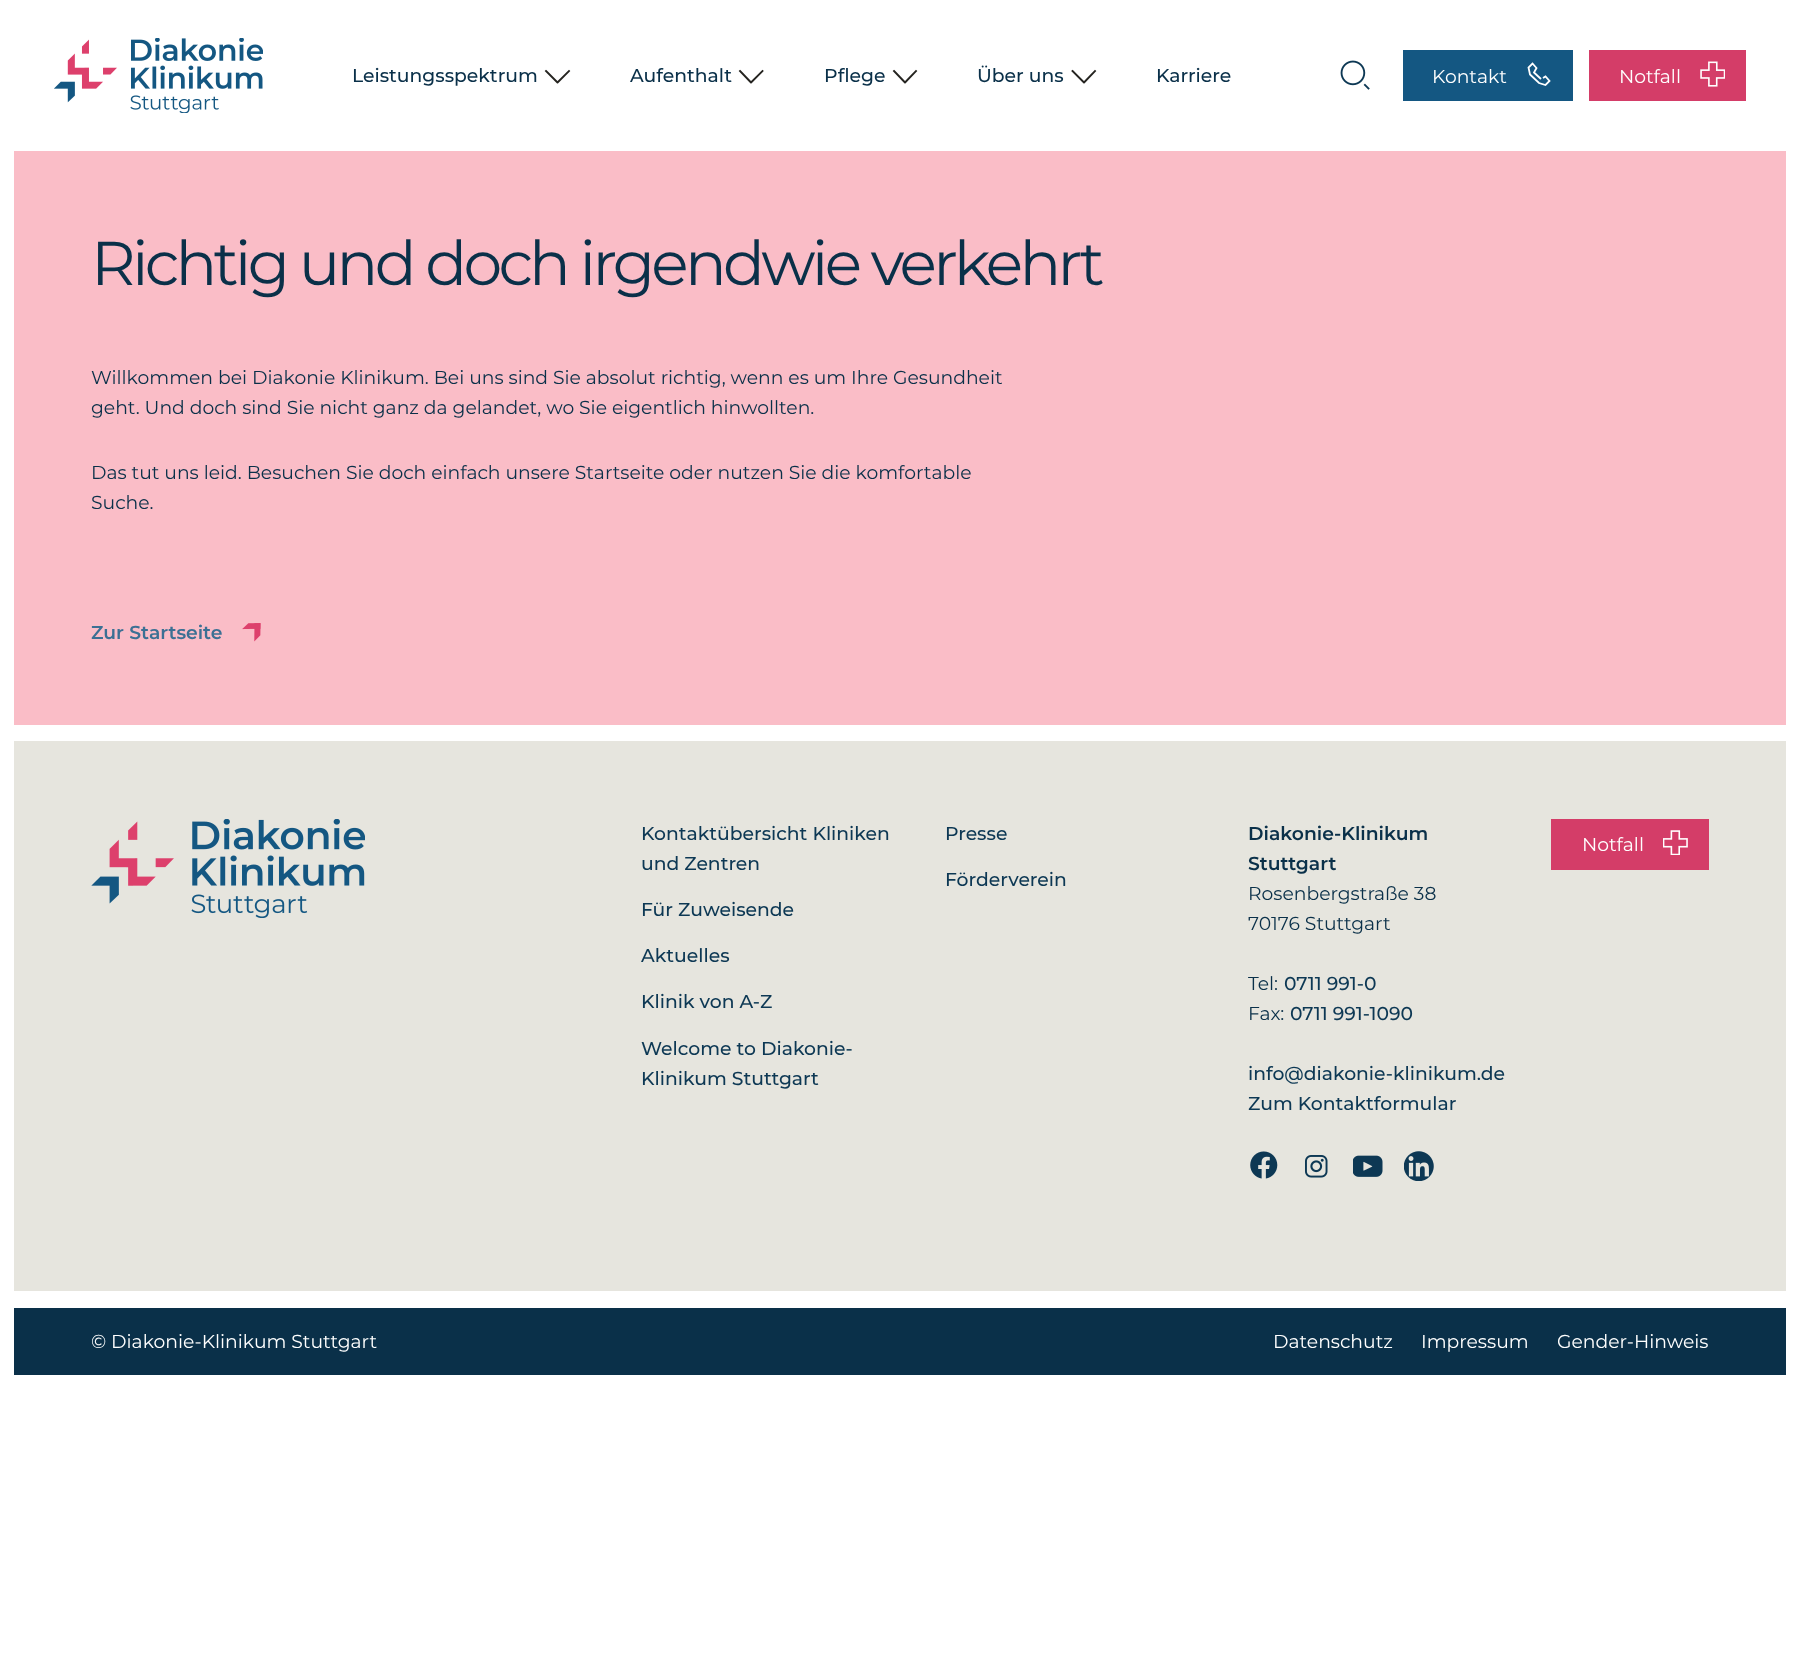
<svg xmlns="http://www.w3.org/2000/svg" width="1799" height="1656" viewBox="0 0 1799 1656">
  <rect width="100%" height="100%" fill="rgb(255,255,255)"/>
  <image x="54" y="38" width="209" height="75" href="pic1.png"/>
  <text x="352" y="82" font-family="'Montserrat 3'" font-size="18.75" font-weight="100" fill="rgb(10,48,73)">Leistungsspektrum</text>
  <path d="M546 71L557.5 82.5L569 71" fill="none" stroke="rgb(37,36,32)" stroke-width="1.9" stroke-linecap="square" stroke-linejoin="round"/>
  <text x="630" y="82" font-family="'Montserrat 3'" font-size="18.75" font-weight="100" fill="rgb(10,48,73)">Aufenthalt</text>
  <path d="M740 71L751 82.5L762.5 71" fill="none" stroke="rgb(37,36,32)" stroke-width="1.9" stroke-linecap="square" stroke-linejoin="round"/>
  <text x="824" y="82" font-family="'Montserrat 3'" font-size="18.75" font-weight="100" fill="rgb(10,48,73)">Pflege</text>
  <path d="M894 71L905 82.5L916 71" fill="none" stroke="rgb(37,36,32)" stroke-width="1.9" stroke-linecap="square" stroke-linejoin="round"/>
  <text x="977" y="82" font-family="'Montserrat 3'" font-size="18.75" font-weight="100" fill="rgb(10,48,73)">Über uns</text>
  <path d="M1072.5 71L1084 82.5L1095 71" fill="none" stroke="rgb(37,36,32)" stroke-width="1.9" stroke-linecap="square" stroke-linejoin="round"/>
  <text x="1156" y="82" font-family="'Montserrat 3'" font-size="18.75" font-weight="100" fill="rgb(10,48,73)">Karriere</text>
  <image x="1340" y="60" width="30" height="30" href="pic2.png"/>
  <rect x="1403" y="50" width="170" height="51" fill="rgb(20,87,130)"/>
  <text x="1432" y="83" font-family="Montserrat" font-size="18.75" font-weight="100" fill="rgb(255,255,255)">Kontakt</text>
  <path d="M1541 79L1534 72.5L1536.5 68L1532.5 63.5L1528.5 67.5L1530 74.5L1539 83L1545.5 85L1549.5 81L1545.5 76.5L1543 78" fill="none" stroke="rgb(255,255,255)" stroke-width="1.8"/>
  <rect x="1589" y="50" width="157" height="51" fill="rgb(212,61,104)"/>
  <text x="1619" y="83" font-family="Montserrat" font-size="18.75" font-weight="100" fill="rgb(255,255,255)">Notfall</text>
  <image x="1700" y="61" width="25" height="26" href="pic3.png"/>
  <rect x="14" y="151" width="1772" height="574" fill="rgb(250,189,199)"/>
  <text x="91" y="285" font-family="Montserrat" font-size="61.75" font-weight="100" letter-spacing="-3.7" fill="rgb(10,48,73)">Richtig und doch irgendwie verkehrt</text>
  <g font-family="Montserrat" font-size="18.75" font-weight="100" fill="rgb(10,48,73)">
    <text>
      <tspan x="91" y="384">Willkommen bei Diakonie Klinikum. Bei uns sind Sie absolut richtig, wenn es um Ihre Gesundheit</tspan>
      <tspan x="91" y="414">geht. Und doch sind Sie nicht ganz da gelandet, wo Sie eigentlich hinwollten.</tspan>
    </text>
    <text>
      <tspan x="91" y="479">Das tut uns leid. Besuchen Sie doch einfach unsere Startseite oder nutzen Sie die komfortable</tspan>
      <tspan x="91" y="509">Suche.</tspan>
    </text>
  </g>
  <text x="91" y="639" font-family="'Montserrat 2'" font-size="18.75" font-weight="100" fill="rgb(59,112,148)">Zur Startseite</text>
  <image x="242" y="623" width="19" height="19" href="pic4.png"/>
  <rect x="14" y="741" width="1772" height="550" fill="rgb(230,229,222)"/>
  <image x="91" y="819" width="274" height="99" href="pic5.png"/>
  <g font-family="'Montserrat 3'" font-size="18.75" font-weight="100" fill="rgb(13,56,84)">
    <text>
      <tspan x="641" y="840">Kontaktübersicht Kliniken</tspan>
      <tspan x="641" y="870">und Zentren</tspan>
    </text>
    <text x="641" y="916">Für Zuweisende</text>
    <text x="641" y="962">Aktuelles</text>
    <text x="641" y="1008">Klinik von A-Z</text>
    <text>
      <tspan x="641" y="1055">Welcome to Diakonie-</tspan>
      <tspan x="641" y="1085">Klinikum Stuttgart</tspan>
    </text>
    <text x="945" y="840">Presse</text>
    <text x="945" y="886">Förderverein</text>
  </g>
  <g font-family="'Montserrat 2'" font-size="18.75" font-weight="100" fill="rgb(10,48,73)">
    <text>
      <tspan x="1248" y="840">Diakonie-Klinikum</tspan>
      <tspan x="1248" y="870">Stuttgart</tspan>
    </text>
  </g>
  <g font-family="Montserrat" font-size="18.75" font-weight="100" fill="rgb(10,48,73)">
    <text>
      <tspan x="1248" y="900">Rosenbergstraße 38</tspan>
      <tspan x="1248" y="930">70176 Stuttgart</tspan>
    </text>
    <text x="1248" y="990">Tel:</text>
  </g>
  <text x="1284" y="990" font-family="'Montserrat 3'" font-size="18.75" font-weight="100" fill="rgb(13,56,84)">0711 991-0</text>
  <text x="1248" y="1020" font-family="Montserrat" font-size="18.75" font-weight="100" fill="rgb(10,48,73)">Fax:</text>
  <g font-family="'Montserrat 3'" font-size="18.75" font-weight="100" fill="rgb(13,56,84)">
    <text x="1290" y="1020">0711 991-1090</text>
    <text>
      <tspan x="1248" y="1080">info@diakonie-klinikum.de</tspan>
      <tspan x="1248" y="1110">Zum Kontaktformular</tspan>
    </text>
  </g>
  <image x="1250" y="1151" width="28" height="28" href="pic6.png"/>
  <image x="1305" y="1155" width="23" height="23" href="pic7.png"/>
  <image x="1353" y="1155" width="30" height="22" href="pic8.png"/>
  <image x="1404" y="1151" width="30" height="30" href="pic9.png"/>
  <rect x="1551" y="819" width="158" height="51" fill="rgb(212,61,104)"/>
  <text x="1582" y="851" font-family="Montserrat" font-size="18.75" font-weight="100" fill="rgb(255,255,255)">Notfall</text>
  <image x="1663" y="830" width="25" height="25" href="pic10.png"/>
  <rect x="14" y="1308" width="1772" height="67" fill="rgb(10,48,73)"/>
  <g font-family="Montserrat" font-size="18.75" font-weight="100" fill="rgb(255,255,255)">
    <text x="91" y="1348">© Diakonie-Klinikum Stuttgart</text>
    <text x="1273" y="1348">Datenschutz</text>
    <text x="1421" y="1348">Impressum</text>
    <text x="1557" y="1348">Gender-Hinweis</text>
  </g>
</svg>
